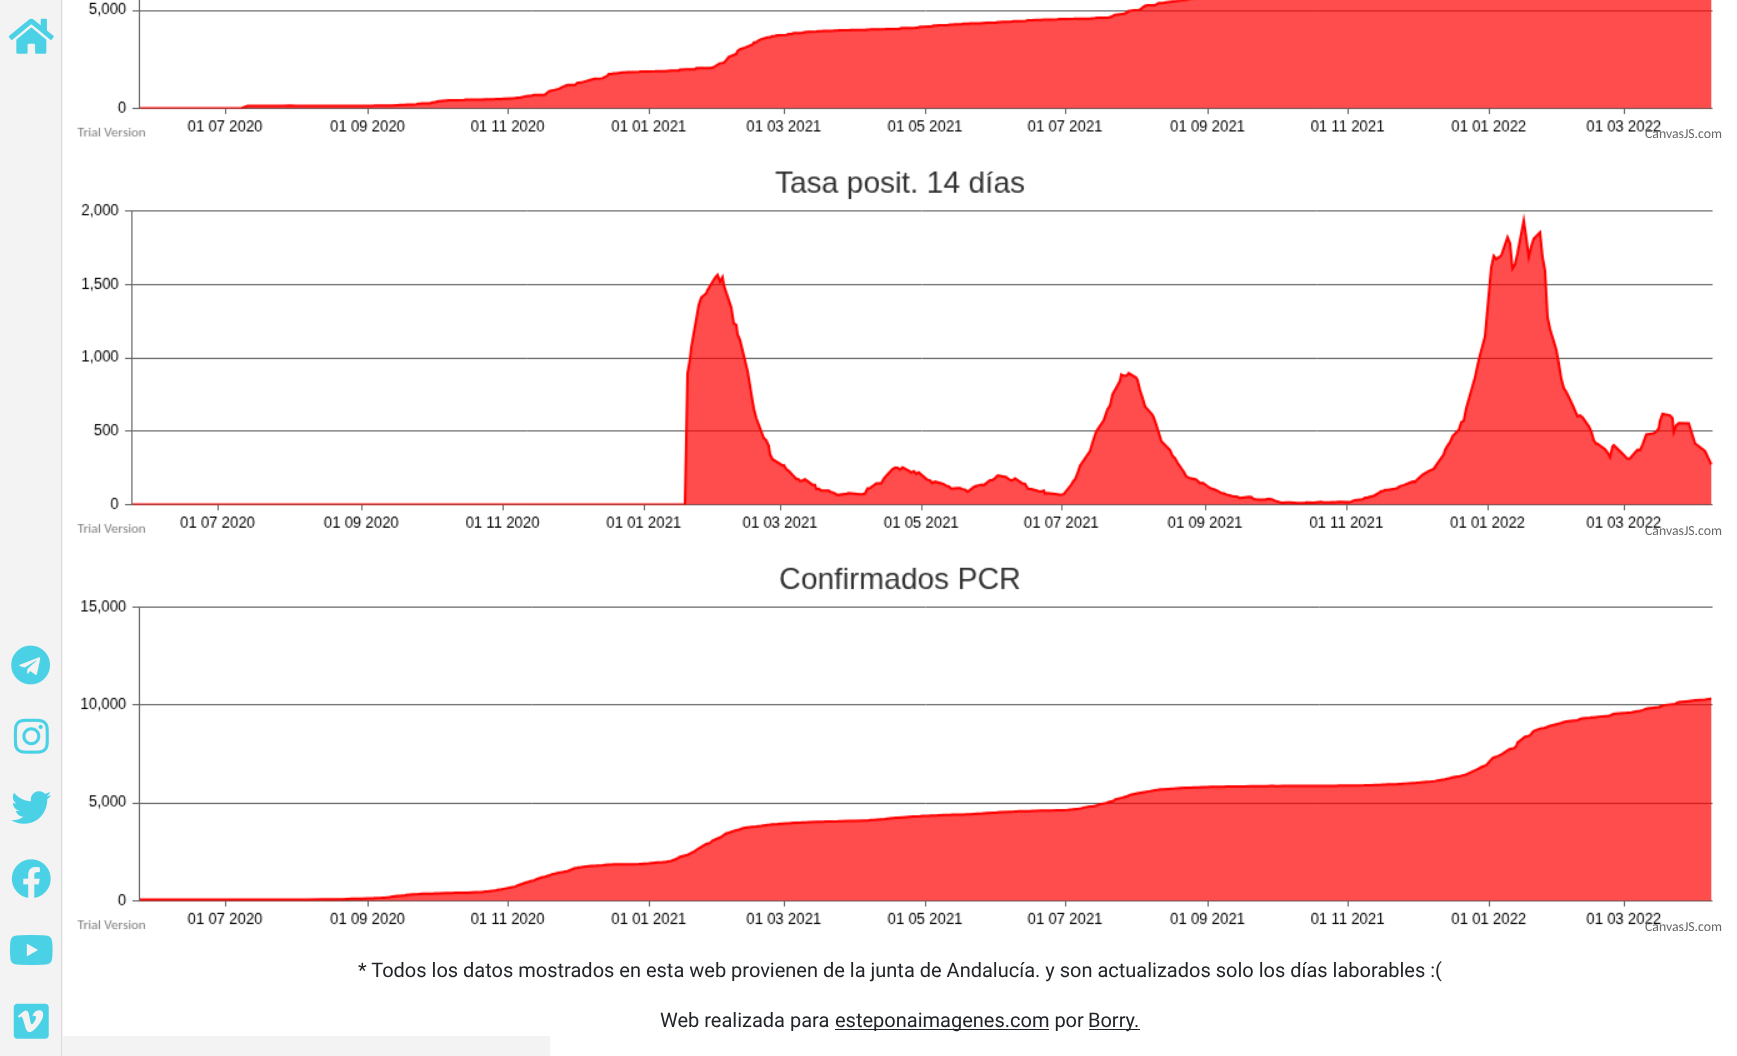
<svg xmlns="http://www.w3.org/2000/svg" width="1737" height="1056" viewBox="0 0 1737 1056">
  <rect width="100%" height="100%" fill="rgb(255,255,255)"/>
  <rect x="0" y="0" width="550" height="1056" fill="rgb(243,243,243)"/>
  <rect x="61" y="0" width="1" height="1056" fill="rgb(219,219,219)"/>
  <image x="8" y="18" width="46" height="36" href="pic1.png"/>
  <image x="11" y="645" width="39" height="40" href="pic2.png"/>
  <image x="13" y="718" width="36" height="36" href="pic3.png"/>
  <image x="11" y="791" width="41" height="33" href="pic4.png"/>
  <image x="11" y="859" width="40" height="39" href="pic5.png"/>
  <image x="9" y="935" width="44" height="30" href="pic6.png"/>
  <image x="13" y="1003" width="36" height="36" href="pic7.png"/>
  <rect x="63" y="0" width="487" height="1036" fill="rgb(255,255,255)"/>
  <image x="77" y="0" width="1636" height="137" href="pic8.png"/>
  <text x="1645" y="138" font-family="Carlito" font-size="13.75" fill="rgb(105,105,105)">CanvasJS.com</text>
  <image x="77" y="171" width="1636" height="362" href="pic9.png"/>
  <text x="1645" y="535" font-family="Carlito" font-size="13.75" fill="rgb(105,105,105)">CanvasJS.com</text>
  <image x="77" y="567" width="1636" height="363" href="pic10.png"/>
  <text x="1645" y="931" font-family="Carlito" font-size="13.75" fill="rgb(105,105,105)">CanvasJS.com</text>
  <g font-family="Roboto" font-size="20" fill="rgb(33,37,41)">
    <text x="358" y="977">* Todos los datos mostrados en esta web provienen de la junta de Andalucía. y son actualizados solo los días laborables :(</text>
    <text x="660" y="1027">Web realizada para</text>
  </g>
  <rect x="835" y="1029" width="214" height="1" fill="rgb(33,37,41)"/>
  <text x="835" y="1027" font-family="Roboto" font-size="20" fill="rgb(33,37,41)">esteponaimagenes.com por</text>
  <rect x="1089" y="1029" width="51" height="1" fill="rgb(33,37,41)"/>
  <text x="1088" y="1027" font-family="Roboto" font-size="20" fill="rgb(33,37,41)">Borry.</text>
</svg>
